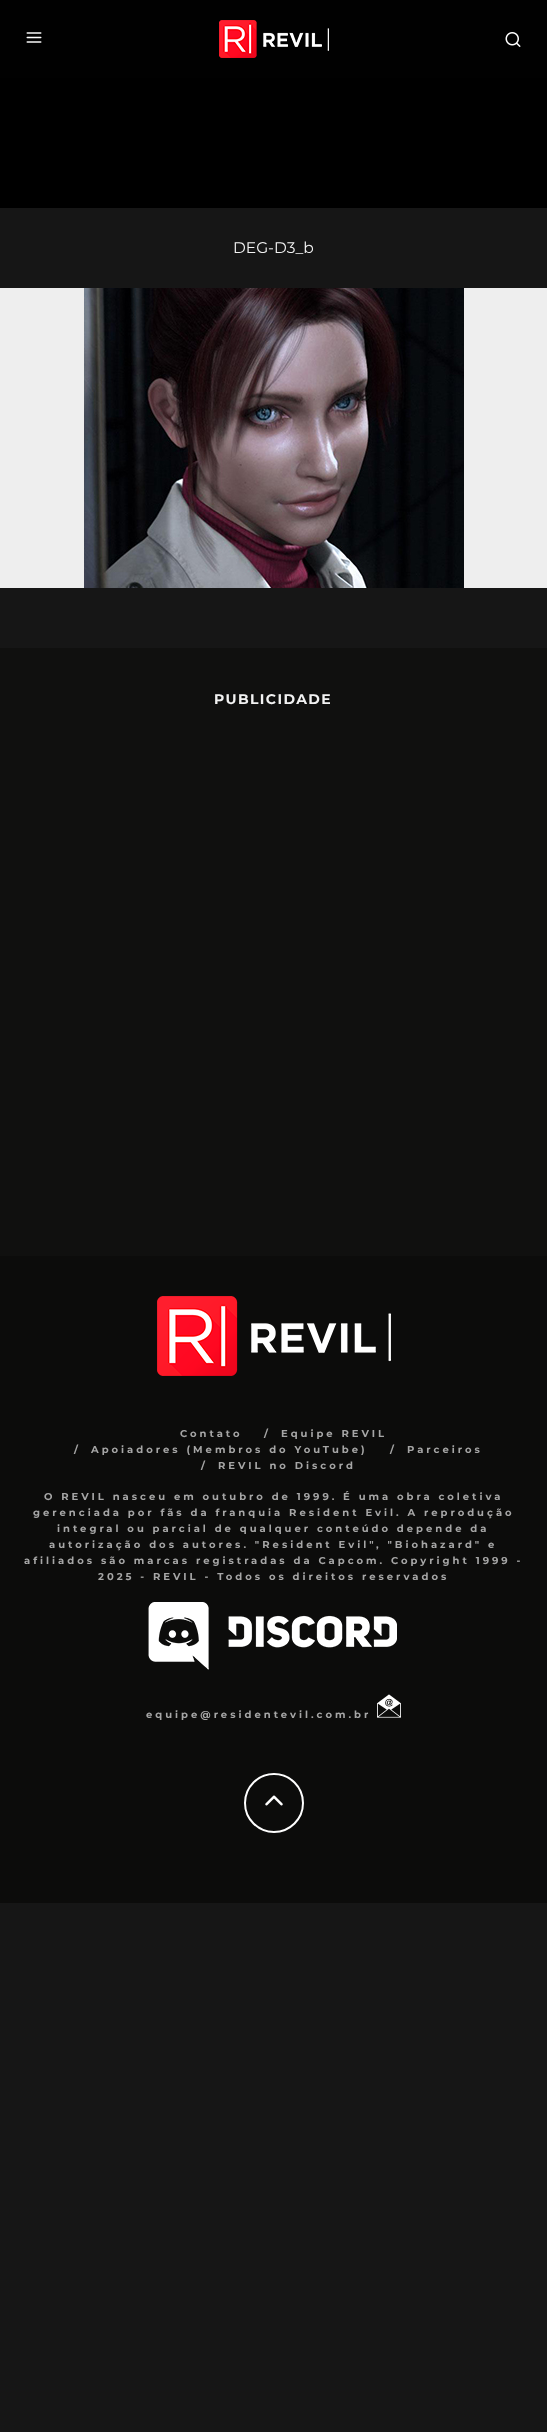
<svg xmlns="http://www.w3.org/2000/svg" width="547" height="2432" viewBox="0 0 547 2432">
  <rect width="100%" height="100%" fill="rgb(22,22,22)"/>
  <rect x="0" y="0" width="547" height="78" fill="rgb(1,1,1)"/>
  <image x="26" y="32" width="16" height="11" href="pic1.png"/>
  <image x="219" y="20" width="110" height="38" href="pic2.png"/>
  <image x="505" y="32" width="16" height="15" href="pic3.png"/>
  <rect x="0" y="78" width="547" height="130" fill="rgb(0,0,0)"/>
  <text x="233" y="253" font-family="Montserrat" font-size="15.5" fill="rgb(242,242,242)">DEG-D3_b</text>
  <rect x="0" y="288" width="547" height="300" fill="rgb(238,238,238)"/>
  <image x="84" y="288" width="380" height="300" href="pic4.png"/>
  <rect x="0" y="648" width="547" height="608" fill="rgb(16,16,15)"/>
  <text x="214" y="704" font-family="Montserrat" font-size="14" font-weight="bold" letter-spacing="1.4" fill="rgb(242,242,242)">PUBLICIDADE</text>
  <rect x="0" y="1256" width="547" height="647" fill="rgb(12,12,11)"/>
  <image x="157" y="1296" width="234" height="80" href="pic5.png"/>
  <g font-family="Montserrat" font-size="10" font-weight="bold" letter-spacing="3" fill="rgb(166,166,166)">
    <text x="180" y="1437">Contato</text>
    <text x="264" y="1437">/</text>
    <text x="281" y="1437">Equipe REVIL</text>
    <text x="74" y="1453">/</text>
    <text x="91" y="1453">Apoiadores (Membros do YouTube)</text>
    <text x="390" y="1453">/</text>
    <text x="407" y="1453">Parceiros</text>
    <text x="201" y="1469">/</text>
    <text x="218" y="1469">REVIL no Discord</text>
    <text x="44" y="1500">O REVIL nasceu em outubro de 1999. É uma obra coletiva</text>
    <text x="33" y="1516">gerenciada por fãs da franquia Resident Evil. A reprodução</text>
    <text x="57" y="1532">integral ou parcial de qualquer conteúdo depende da</text>
    <text x="49" y="1548">autorização dos autores. "Resident Evil", "Biohazard" e</text>
    <text x="24" y="1564">afiliados são marcas registradas da Capcom. Copyright 1999 -</text>
    <text x="98" y="1580">2025 - REVIL - Todos os direitos reservados</text>
  </g>
  <image x="148" y="1602" width="249" height="68" href="pic6.png"/>
  <text x="146" y="1718" font-family="Montserrat" font-size="10" font-weight="bold" letter-spacing="3" fill="rgb(166,166,166)">equipe@residentevil.com.br</text>
  <image x="377" y="1694" width="24" height="24" href="pic7.png"/>
  <circle cx="274" cy="1803" r="29" fill="none" stroke="rgb(255,255,255)" stroke-width="2"/>
  <image x="265" y="1795" width="18" height="11" href="pic8.png"/>
</svg>
